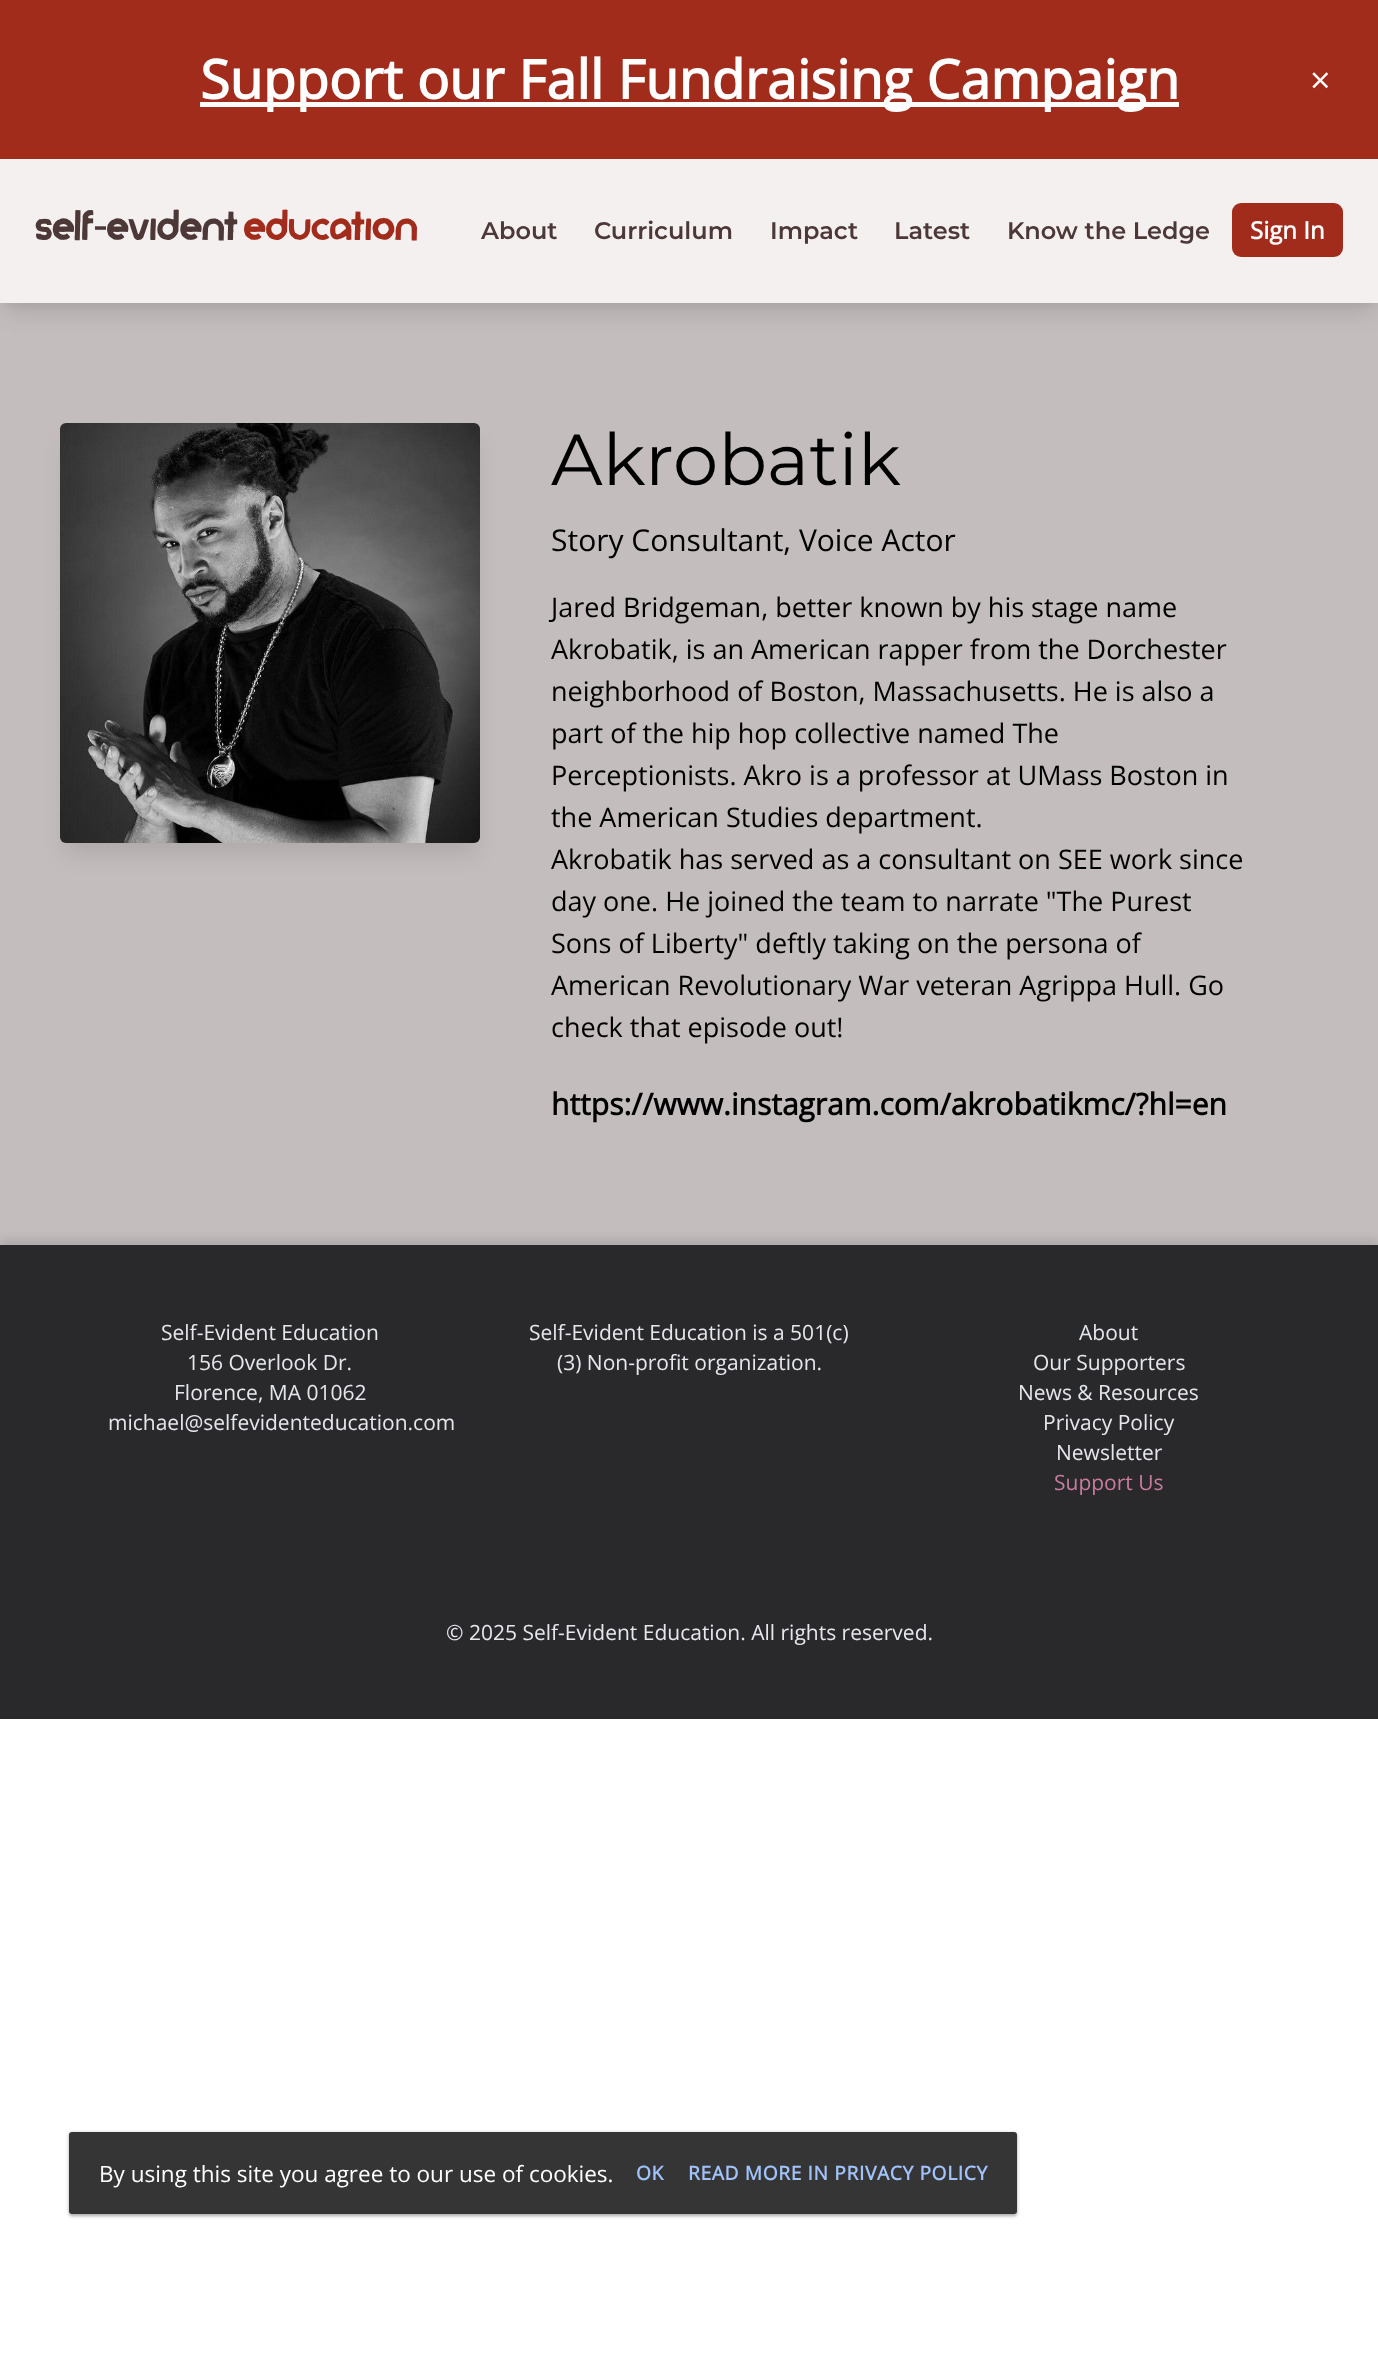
<svg xmlns="http://www.w3.org/2000/svg" width="1378" height="2380" viewBox="0 0 1378 2380">
  <rect width="100%" height="100%" fill="rgb(255,255,255)"/>
  <rect x="3" y="168" width="1373" height="138" fill="rgba(0,0,0,0.05)" filter="blur(4.5px)"/>
  <rect x="5" y="179" width="1369" height="135" fill="rgba(0,0,0,0.1)" filter="blur(11px)"/>
  <rect x="0" y="0" width="1378" height="159" fill="rgb(161,44,27)"/>
  <rect x="200" y="102" width="979" height="5" fill="rgb(255,255,255)"/>
  <text x="200" y="99" font-family="Open Sans" font-size="54" font-weight="bold" fill="rgb(255,255,255)">Support our Fall Fundraising Campaign</text>
  <text x="1310" y="93" font-family="Open Sans" font-size="36" fill="rgb(255,255,255)">×</text>
  <rect x="0" y="159" width="1378" height="144" fill="rgb(245,240,240)"/>
  <text x="36" y="240" font-family="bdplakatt" font-size="60" fill="rgb(77,56,56)">self</text>
  <text x="93" y="240" font-family="Liberation Sans" font-size="45" fill="rgb(77,56,56)">-</text>
  <text x="107" y="240" font-family="bdplakatt" font-size="60" fill="rgb(77,56,56)">evident</text>
  <text x="244" y="240" font-family="bdplakatt" font-size="60" fill="rgb(161,44,27)">education</text>
  <g font-family="Montserrat" font-size="24" font-weight="600" fill="rgb(77,56,56)">
    <text x="481" y="239">About</text>
    <text x="594" y="239">Curriculum</text>
    <text x="770" y="239">Impact</text>
    <text x="894" y="239">Latest</text>
    <text x="1007" y="239">Know the Ledge</text>
  </g>
  <rect x="1232" y="203" width="111" height="54" rx="9" fill="rgb(161,44,27)"/>
  <text x="1250" y="239" font-family="Open Sans" font-size="24" font-weight="bold" fill="rgb(255,255,255)">Sign In</text>
  <rect x="0" y="303" width="1378" height="942" fill="rgba(41,22,17,0.28)"/>
  <rect x="65" y="443" width="411" height="411" rx="1.5" fill="rgba(0,0,0,0.1)" filter="blur(11px)"/>
  <image x="60" y="423" width="420" height="420" href="pic1.png"/>
  <text x="551" y="485" font-family="Montserrat" font-size="72" fill="rgb(0,0,0)">Akrobatik</text>
  <text x="551" y="551" font-family="Open Sans" font-size="30" fill="rgb(0,0,0)">Story Consultant, Voice Actor</text>
  <g font-family="Open Sans" font-size="27" fill="rgb(0,0,0)">
    <text>
      <tspan x="551" y="617">Jared Bridgeman, better known by his stage name</tspan>
      <tspan x="551" y="659">Akrobatik, is an American rapper from the Dorchester</tspan>
      <tspan x="551" y="701">neighborhood of Boston, Massachusetts. He is also a</tspan>
      <tspan x="551" y="743">part of the hip hop collective named The</tspan>
      <tspan x="551" y="785">Perceptionists. Akro is a professor at UMass Boston in</tspan>
      <tspan x="551" y="827">the American Studies department.</tspan>
      <tspan x="551" y="869">Akrobatik has served as a consultant on SEE work since</tspan>
      <tspan x="551" y="911">day one. He joined the team to narrate "The Purest</tspan>
      <tspan x="551" y="953">Sons of Liberty" deftly taking on the persona of</tspan>
      <tspan x="551" y="995">American Revolutionary War veteran Agrippa Hull. Go</tspan>
      <tspan x="551" y="1037">check that episode out!</tspan>
    </text>
  </g>
  <text x="551" y="1115" font-family="Open Sans" font-size="30" font-weight="bold" fill="rgb(0,0,0)">https://www.instagram.com/akrobatikmc/?hl=en</text>
  <rect x="0" y="1239" width="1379" height="474" fill="rgba(0,0,0,0.1)" filter="blur(4.5px)"/>
  <rect x="0" y="1245" width="1378" height="474" fill="rgb(41,41,44)"/>
  <g font-family="Open Sans" font-size="21" fill="rgb(229,231,235)">
    <text x="161" y="1340">Self-Evident Education</text>
    <text x="187" y="1370">156 Overlook Dr.</text>
    <text x="174" y="1400">Florence, MA 01062</text>
    <text x="108" y="1430">michael@selfevidenteducation.com</text>
    <text x="529" y="1340">Self-Evident Education is a 501(c)</text>
    <text x="557" y="1370">(3) Non-profit organization.</text>
    <text x="1079" y="1340">About</text>
    <text x="1033" y="1370">Our Supporters</text>
    <text x="1018" y="1400">News &amp; Resources</text>
    <text x="1043" y="1430">Privacy Policy</text>
    <text x="1056" y="1460">Newsletter</text>
  </g>
  <text x="1054" y="1490" font-family="Open Sans" font-size="21" fill="rgb(201,124,158)">Support Us</text>
  <text x="446" y="1640" font-family="Open Sans" font-size="21" fill="rgb(229,231,235)">© 2025 Self-Evident Education. All rights reserved.</text>
  <rect x="69" y="2133" width="948" height="83" rx="3" fill="rgba(0,0,0,0.24)" filter="blur(1.5px)"/>
  <rect x="69" y="2133" width="948" height="83" rx="3" fill="rgba(0,0,0,0.12)" filter="blur(2px)"/>
  <rect x="69" y="2132" width="948" height="82" rx="3" fill="rgb(53,53,53)"/>
  <text x="99" y="2182" font-family="Open Sans" font-size="22.5" fill="rgb(255,255,255)">By using this site you agree to our use of cookies.</text>
  <g font-family="Open Sans" font-size="19.25" font-weight="bold" letter-spacing="0.6" fill="rgb(161,194,250)">
    <text x="636" y="2180">OK</text>
    <text x="688" y="2180">READ MORE IN PRIVACY POLICY</text>
  </g>
</svg>
